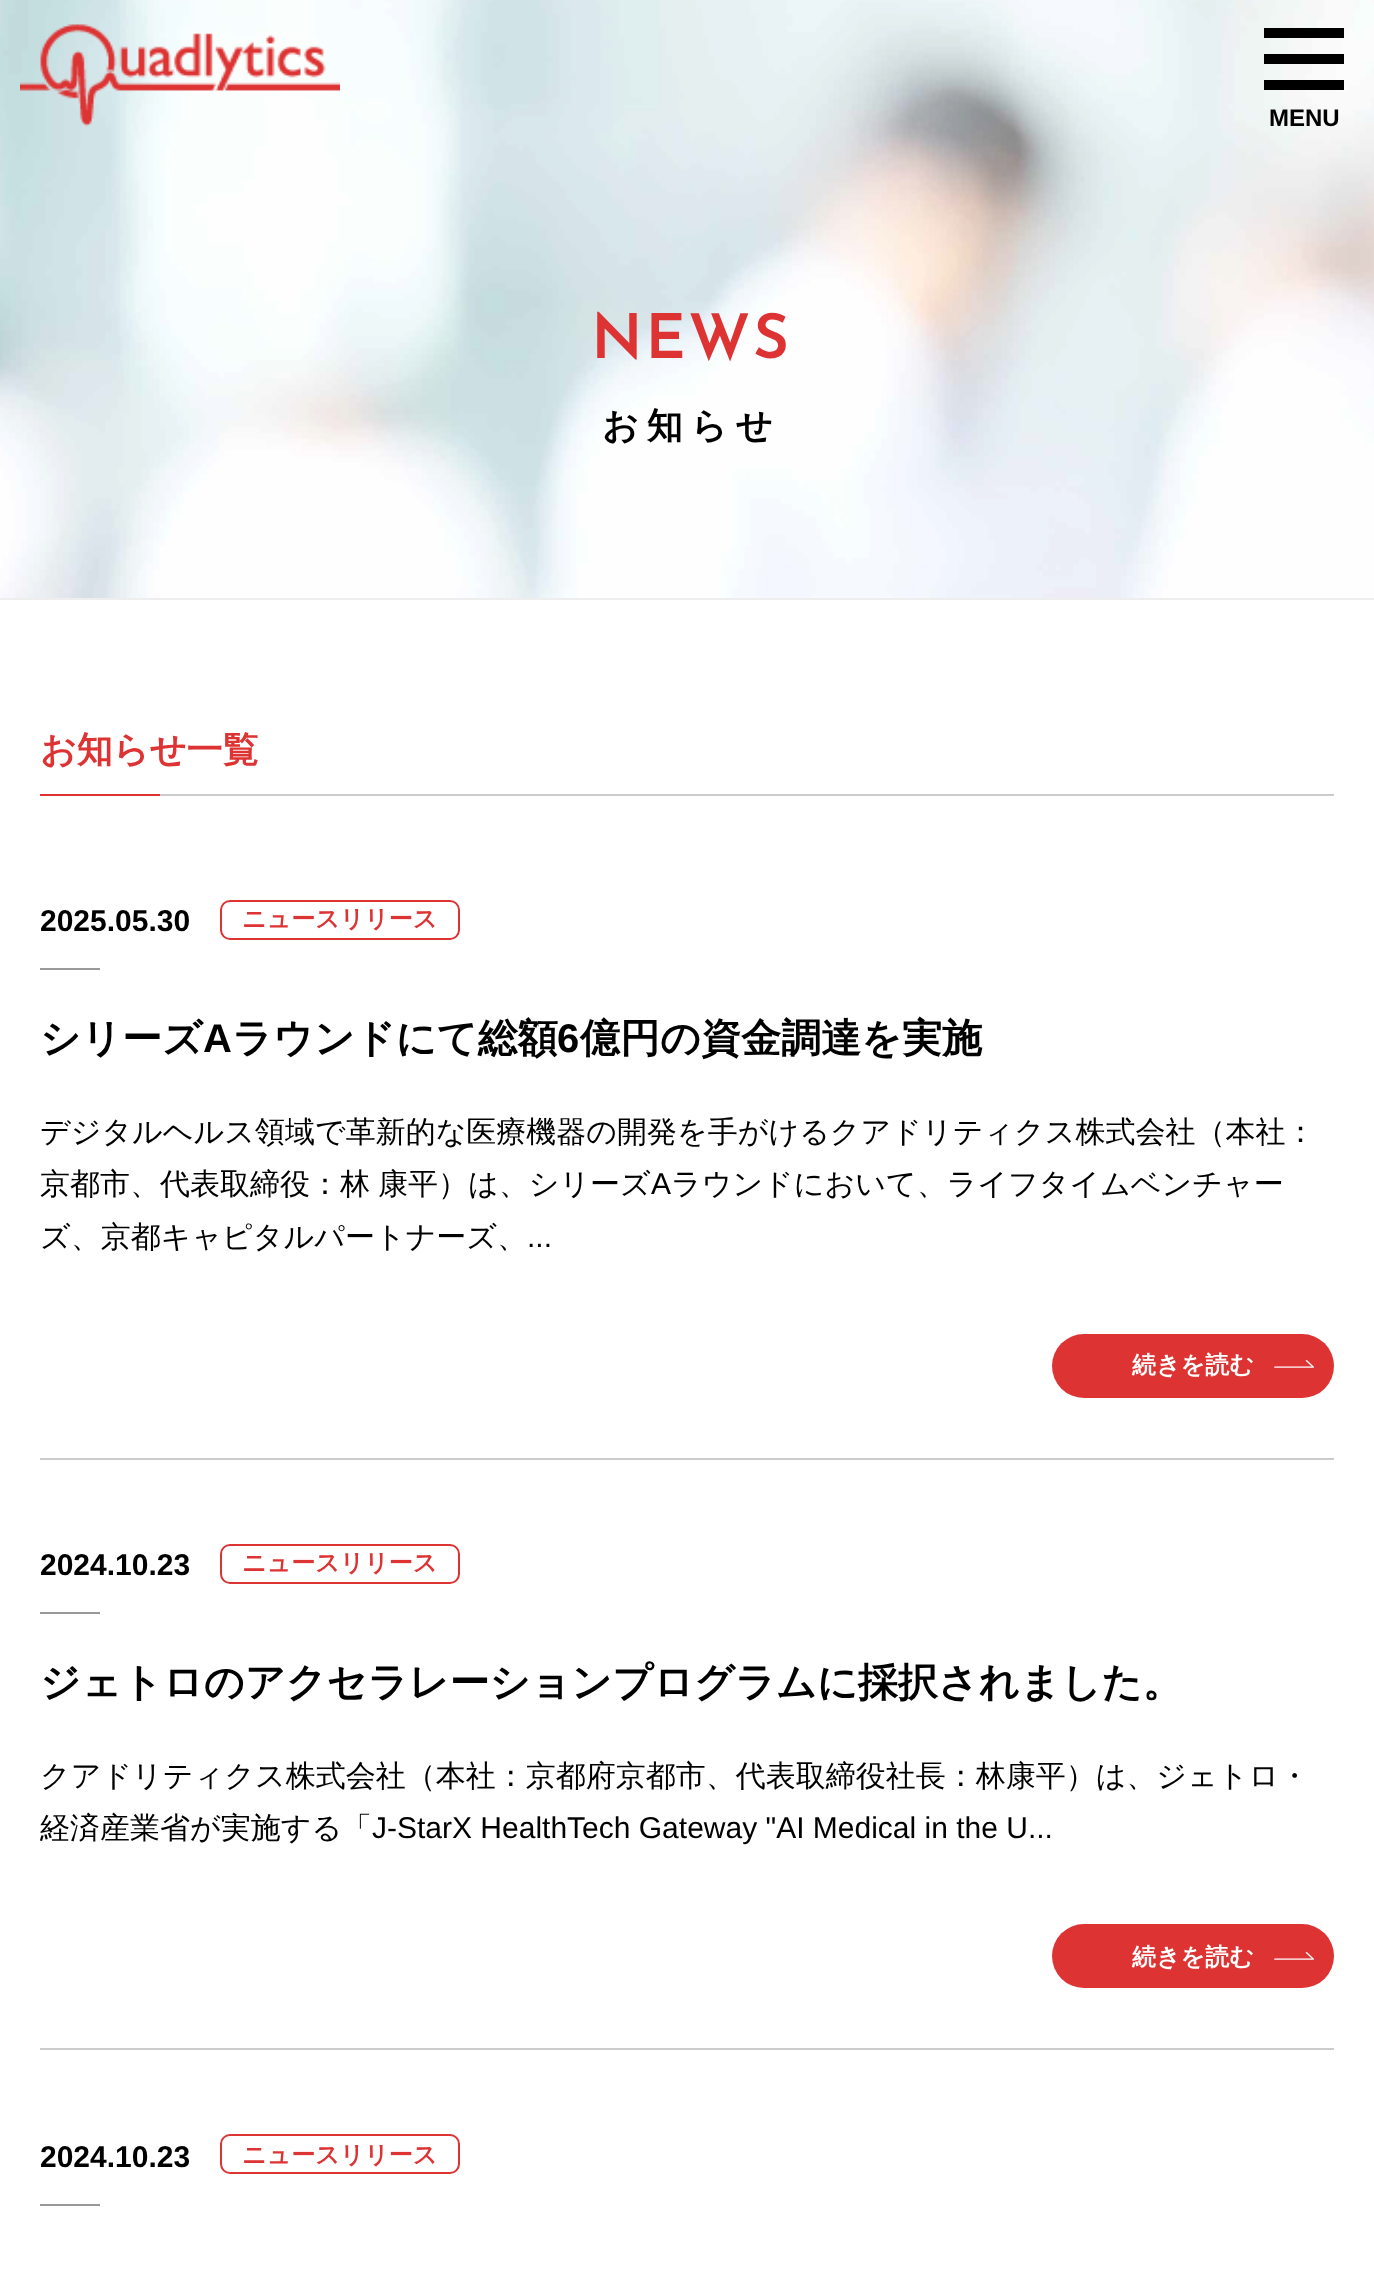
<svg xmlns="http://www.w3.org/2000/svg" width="1374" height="2276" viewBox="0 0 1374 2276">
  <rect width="100%" height="100%" fill="rgb(255,255,255)"/>
  <image x="0" y="0" width="1374" height="598" href="pic2.png"/>
  <image x="20" y="24" width="320" height="103" href="pic1.png"/>
  <rect x="1264" y="54" width="80" height="10" fill="rgb(0,0,0)"/>
  <rect x="1264" y="28" width="80" height="10" fill="rgb(0,0,0)"/>
  <rect x="1264" y="80" width="80" height="10" fill="rgb(0,0,0)"/>
  <text x="1269" y="126" font-family="Liberation Sans" font-size="24" font-weight="bold" fill="rgb(0,0,0)">MENU</text>
  <rect x="0" y="598" width="1374" height="2" fill="rgb(238,238,238)"/>
  <text x="591" y="358" font-family="Josefin Sans" font-size="60" font-weight="bold" letter-spacing="4" fill="rgb(221,51,51)">NEWS</text>
  <text x="602" y="438" font-family="WenQuanYi Zen Hei" font-size="36" font-weight="bold" letter-spacing="8" fill="rgb(0,0,0)">お知らせ</text>
  <text x="40" y="762" font-family="WenQuanYi Zen Hei" font-size="36" font-weight="bold" fill="rgb(221,51,51)">お知らせ一覧</text>
  <rect x="40" y="794" width="120" height="2" fill="rgb(221,51,51)"/>
  <rect x="160" y="794" width="1174" height="2" fill="rgb(204,204,204)"/>
  <rect x="40" y="1458" width="1294" height="2" fill="rgb(204,204,204)"/>
  <text x="40" y="931" font-family="Liberation Sans" font-size="30" font-weight="bold" fill="rgb(0,0,0)">2025.05.30</text>
  <rect x="221" y="901" width="238" height="38" rx="9" fill="none" stroke="rgb(221,51,51)" stroke-width="2"/>
  <text x="242" y="927" font-family="WenQuanYi Zen Hei" font-size="24" font-weight="bold" fill="rgb(221,51,51)">ニュースリリース</text>
  <rect x="40" y="968" width="60" height="2" fill="rgb(153,153,153)"/>
  <text x="40" y="1052" font-family="WenQuanYi Zen Hei" font-size="40" font-weight="bold" fill="rgb(0,0,0)">シリーズ</text>
  <text x="203" y="1052" font-family="Liberation Sans" font-size="40" font-weight="bold" fill="rgb(0,0,0)">A</text>
  <text x="232" y="1052" font-family="WenQuanYi Zen Hei" font-size="40" font-weight="bold" fill="rgb(0,0,0)">ラウンドにて総額</text>
  <text x="557" y="1052" font-family="Liberation Sans" font-size="40" font-weight="bold" fill="rgb(0,0,0)">6</text>
  <text x="580" y="1052" font-family="WenQuanYi Zen Hei" font-size="40" font-weight="bold" fill="rgb(0,0,0)">億円の資金調達を実施</text>
  <g font-family="WenQuanYi Zen Hei" font-size="30" font-weight="500" fill="rgb(0,0,0)">
    <text>
      <tspan x="40" y="1142">デジタルヘルス領域で革新的な医療機器の開発を手がけるクアドリティクス株式会社（本社：</tspan>
      <tspan x="40" y="1194" word-spacing="-1">京都市、代表取締役：林 康平）は、シリーズ</tspan>
    </text>
  </g>
  <text x="651" y="1194" font-family="Liberation Sans" font-size="30" fill="rgb(0,0,0)">A</text>
  <g font-family="WenQuanYi Zen Hei" font-size="30" font-weight="500" fill="rgb(0,0,0)">
    <text x="671" y="1194">ラウンドにおいて、ライフタイムベンチャー</text>
    <text x="40" y="1247">ズ、京都キャピタルパートナーズ、</text>
  </g>
  <text x="527" y="1247" font-family="Liberation Sans" font-size="30" fill="rgb(0,0,0)">...</text>
  <rect x="1052" y="1334" width="282" height="64" rx="32" fill="rgb(221,51,51)"/>
  <image x="1274" y="1360" width="40" height="8" href="pic3.png"/>
  <text x="1132" y="1373" font-family="WenQuanYi Zen Hei" font-size="24" font-weight="bold" fill="rgb(255,255,255)">続きを読む</text>
  <rect x="40" y="2048" width="1294" height="2" fill="rgb(204,204,204)"/>
  <text x="40" y="1575" font-family="Liberation Sans" font-size="30" font-weight="bold" fill="rgb(0,0,0)">2024.10.23</text>
  <rect x="221" y="1545" width="238" height="38" rx="9" fill="none" stroke="rgb(221,51,51)" stroke-width="2"/>
  <text x="242" y="1571" font-family="WenQuanYi Zen Hei" font-size="24" font-weight="bold" fill="rgb(221,51,51)">ニュースリリース</text>
  <rect x="40" y="1612" width="60" height="2" fill="rgb(153,153,153)"/>
  <text x="40" y="1696" font-family="WenQuanYi Zen Hei" font-size="40" font-weight="bold" fill="rgb(0,0,0)">ジェトロのアクセラレーションプログラムに採択されました。</text>
  <g font-family="WenQuanYi Zen Hei" font-size="30" font-weight="500" fill="rgb(0,0,0)">
    <text>
      <tspan x="40" y="1786">クアドリティクス株式会社（本社：京都府京都市、代表取締役社長：林康平）は、ジェトロ・</tspan>
      <tspan x="40" y="1838">経済産業省が実施する「</tspan>
    </text>
  </g>
  <text x="372" y="1838" font-family="Liberation Sans" font-size="30" fill="rgb(0,0,0)">J-StarX HealthTech Gateway "AI Medical in the U...</text>
  <rect x="1052" y="1924" width="282" height="64" rx="32" fill="rgb(221,51,51)"/>
  <image x="1274" y="1952" width="40" height="8" href="pic3.png"/>
  <text x="1132" y="1965" font-family="WenQuanYi Zen Hei" font-size="24" font-weight="bold" fill="rgb(255,255,255)">続きを読む</text>
  <text x="40" y="2167" font-family="Liberation Sans" font-size="30" font-weight="bold" fill="rgb(0,0,0)">2024.10.23</text>
  <rect x="221" y="2135" width="238" height="38" rx="9" fill="none" stroke="rgb(221,51,51)" stroke-width="2"/>
  <text x="242" y="2163" font-family="WenQuanYi Zen Hei" font-size="24" font-weight="bold" fill="rgb(221,51,51)">ニュースリリース</text>
  <rect x="40" y="2204" width="60" height="2" fill="rgb(153,153,153)"/>
</svg>
